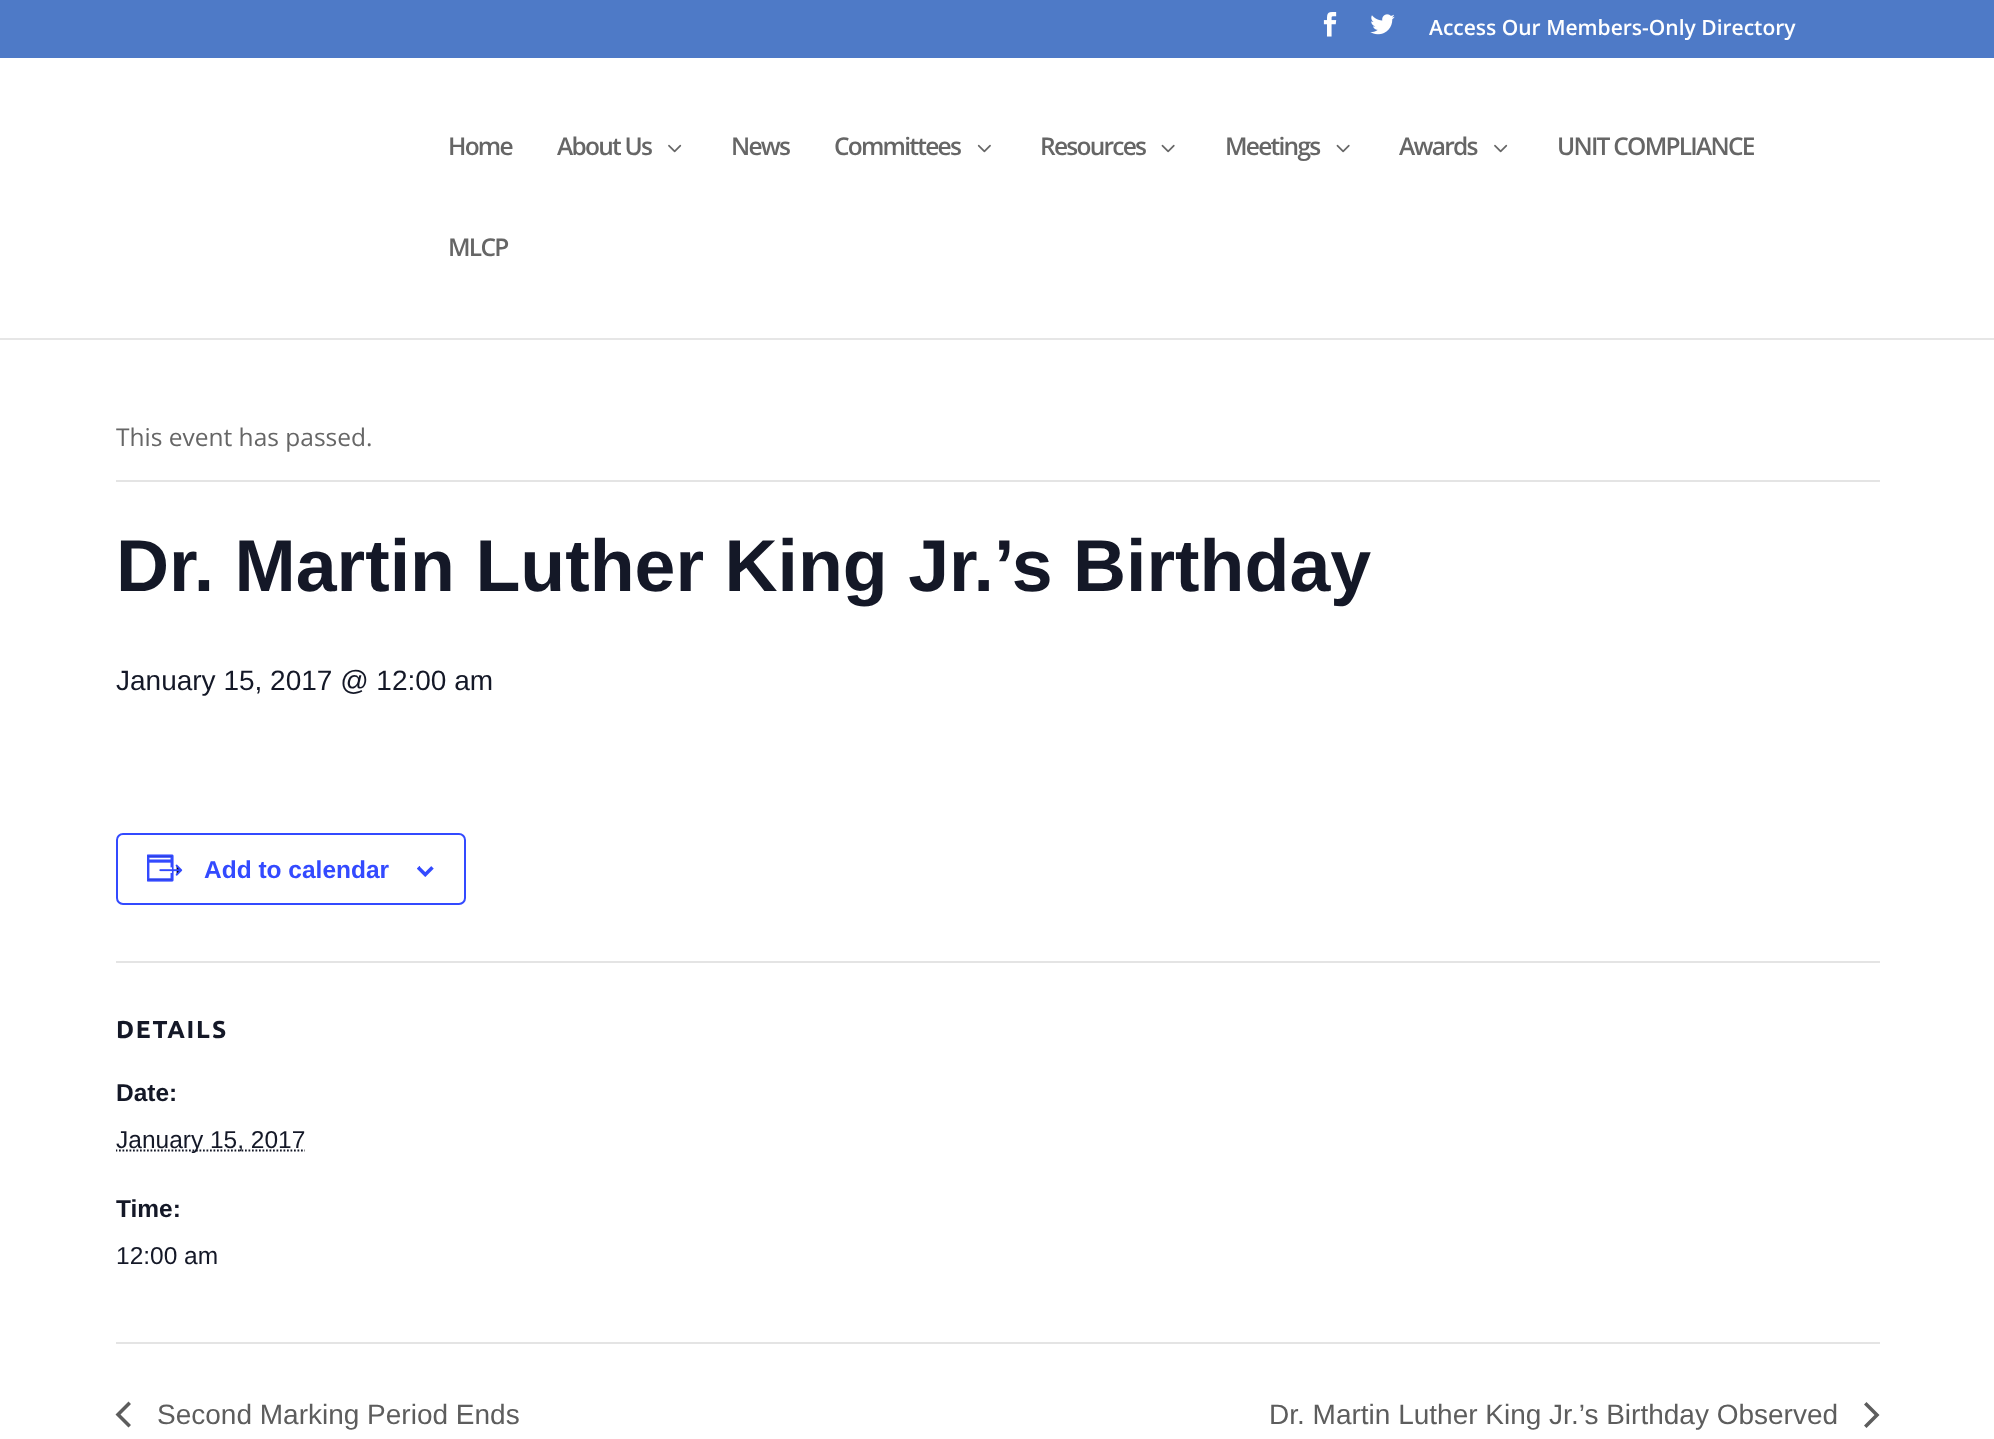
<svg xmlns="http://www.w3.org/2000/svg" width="1994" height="1439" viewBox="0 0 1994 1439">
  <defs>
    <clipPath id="clip1"><rect x="116" y="777" width="1764" height="565"/></clipPath>
  </defs>
  <rect width="100%" height="100%" fill="rgb(255,255,255)"/>
  <rect x="0" y="0" width="1994" height="58" fill="rgb(78,122,199)"/>
  <image x="1323" y="12" width="14" height="25" href="pic1.png"/>
  <image x="1370" y="14" width="25" height="21" href="pic2.png"/>
  <text x="1429" y="35" font-family="Open Sans" font-size="21" font-weight="600" fill="rgb(255,255,255)">Access Our Members-Only Directory</text>
  <rect x="0" y="338" width="1994" height="2" fill="rgb(230,230,230)"/>
  <g font-family="Open Sans" font-size="24.5" font-weight="600" letter-spacing="-1.75" fill="rgb(102,102,102)">
    <text x="448" y="155">Home</text>
    <text x="557" y="155">About Us</text>
  </g>
  <image x="668" y="144" width="14" height="9" href="pic3.png"/>
  <g font-family="Open Sans" font-size="24.5" font-weight="600" letter-spacing="-1.75" fill="rgb(102,102,102)">
    <text x="731" y="155">News</text>
    <text x="834" y="155">Committees</text>
  </g>
  <image x="977" y="144" width="14" height="9" href="pic4.png"/>
  <text x="1040" y="155" font-family="Open Sans" font-size="24.5" font-weight="600" letter-spacing="-1.75" fill="rgb(102,102,102)">Resources</text>
  <image x="1161" y="144" width="14" height="9" href="pic5.png"/>
  <text x="1225" y="155" font-family="Open Sans" font-size="24.5" font-weight="600" letter-spacing="-1.75" fill="rgb(102,102,102)">Meetings</text>
  <image x="1336" y="144" width="14" height="9" href="pic5.png"/>
  <text x="1399" y="155" font-family="Open Sans" font-size="24.5" font-weight="600" letter-spacing="-1.75" fill="rgb(102,102,102)">Awards</text>
  <image x="1494" y="144" width="14" height="9" href="pic3.png"/>
  <g font-family="Open Sans" font-size="24.5" font-weight="600" letter-spacing="-1.75" fill="rgb(102,102,102)">
    <text x="1557" y="155">UNIT COMPLIANCE</text>
    <text x="448" y="256">MLCP</text>
  </g>
  <rect x="116" y="480" width="1764" height="2" fill="rgb(228,228,228)"/>
  <text x="116" y="446" font-family="Open Sans" font-size="24.5" fill="rgb(102,102,102)">This event has passed.</text>
  <text x="116" y="591" font-family="Liberation Sans" font-size="73.5" font-weight="bold" fill="rgb(20,24,39)">Dr. Martin Luther King Jr.’s Birthday</text>
  <text x="116" y="690" font-family="Liberation Sans" font-size="28" fill="rgb(20,24,39)">January 15, 2017 @ 12:00 am</text>
  <rect x="117" y="834" width="348" height="70" rx="6" fill="none" stroke="rgb(51,74,255)" stroke-width="2"/>
  <image x="147" y="854" width="36" height="28" href="pic6.png"/>
  <text x="204" y="878" font-family="Liberation Sans" font-size="24.5" font-weight="bold" fill="rgb(51,74,255)">Add to calendar</text>
  <image x="417" y="866" width="17" height="11" href="pic7.png"/>
  <rect x="116" y="961" width="1764" height="2" fill="rgb(228,228,228)"/>
  <text x="116" y="1038" font-family="Ubuntu" font-size="24.5" font-weight="bold" letter-spacing="1.75" fill="rgb(20,24,39)">DETAILS</text>
  <text x="116" y="1101" font-family="Liberation Sans" font-size="24.5" font-weight="bold" fill="rgb(20,24,39)">Date:</text>
  <g clip-path="url(#clip1)">
    <path d="M115.5 1150.5H305" fill="none" stroke="rgb(20,24,39)" stroke-width="1.8" stroke-dasharray="1.75 1.75"/>
  </g>
  <text x="116" y="1148" font-family="Liberation Sans" font-size="24.5" fill="rgb(20,24,39)">January 15, 2017</text>
  <g clip-path="url(#clip1)">
    <text x="116" y="1217" font-family="Liberation Sans" font-size="24.5" font-weight="bold" fill="rgb(20,24,39)">Time:</text>
  </g>
  <text x="116" y="1264" font-family="Liberation Sans" font-size="24.5" fill="rgb(20,24,39)">12:00 am</text>
  <rect x="116" y="1342" width="1764" height="2" fill="rgb(228,228,228)"/>
  <path d="M131 1425L128.5 1427.5L115.5 1414.5L128.5 1401.5L131 1404L120.5 1414.5Z" fill="rgb(93,93,93)"/>
  <g font-family="Liberation Sans" font-size="28" fill="rgb(93,93,93)">
    <text x="157" y="1424">Second Marking Period Ends</text>
    <text x="1269" y="1424">Dr. Martin Luther King Jr.’s Birthday Observed</text>
  </g>
  <path d="M1864 1404.5L1866.5 1402L1879.5 1415L1866.5 1428L1864 1425.5L1874.5 1415Z" fill="rgb(93,93,93)"/>
</svg>
